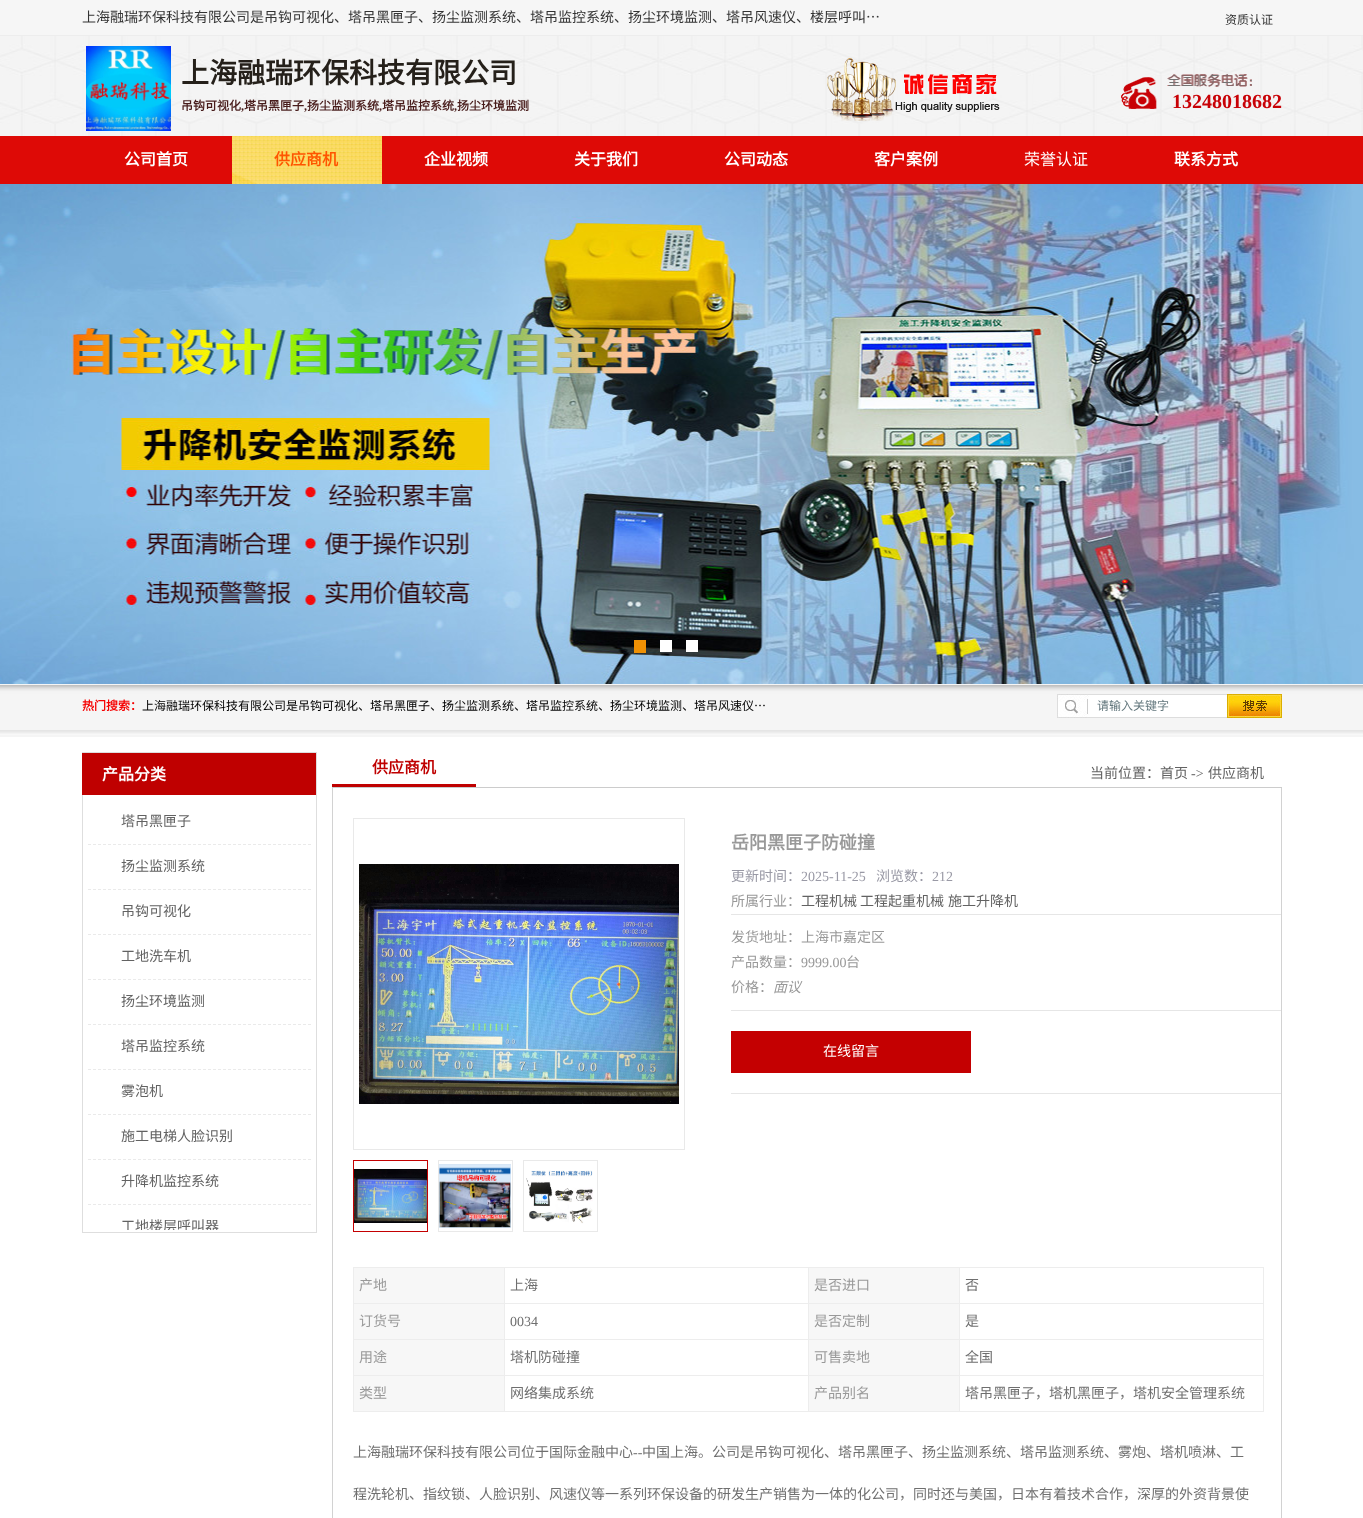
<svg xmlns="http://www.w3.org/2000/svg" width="1363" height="1518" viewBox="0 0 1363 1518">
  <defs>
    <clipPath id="clip1"><rect x="88" y="1205" width="223" height="25"/></clipPath>
  </defs>
  <rect width="100%" height="100%" fill="rgb(255,255,255)"/>
  <rect x="0" y="0" width="1363" height="35" fill="rgb(246,246,246)"/>
  <rect x="0" y="35" width="1363" height="1" fill="rgb(237,237,237)"/>
  <text x="82" y="22" font-family="Noto Sans CJK SC" font-size="14" fill="rgb(51,51,51)">上海融瑞环保科技有限公司是吊钩可视化、塔吊黑匣子、扬尘监测系统、塔吊监控系统、扬尘环境监测、塔吊风速仪、楼层呼叫…</text>
  <text x="1225" y="24" font-family="Noto Sans CJK SC" font-size="12" fill="rgb(51,51,51)">资质认证</text>
  <image x="0" y="36" width="1363" height="100" href="pic1.png"/>
  <image x="86" y="46" width="85" height="85" href="pic2.png"/>
  <image x="827" y="58" width="173" height="63" href="pic3.png"/>
  <text x="181" y="83" font-family="Noto Sans CJK SC" font-size="28" font-weight="bold" fill="rgb(37,32,26)">上海融瑞环保科技有限公司</text>
  <text x="181" y="110" font-family="Noto Sans CJK SC" font-size="12" font-weight="bold" fill="rgb(72,28,27)">吊钩可视化</text>
  <text x="241" y="110" font-family="Liberation Serif" font-size="12" font-weight="bold" fill="rgb(72,28,27)">,</text>
  <text x="244" y="110" font-family="Noto Sans CJK SC" font-size="12" font-weight="bold" fill="rgb(72,28,27)">塔吊黑匣子</text>
  <text x="304" y="110" font-family="Liberation Serif" font-size="12" font-weight="bold" fill="rgb(72,28,27)">,</text>
  <text x="307" y="110" font-family="Noto Sans CJK SC" font-size="12" font-weight="bold" fill="rgb(72,28,27)">扬尘监测系统</text>
  <text x="379" y="110" font-family="Liberation Serif" font-size="12" font-weight="bold" fill="rgb(72,28,27)">,</text>
  <text x="382" y="110" font-family="Noto Sans CJK SC" font-size="12" font-weight="bold" fill="rgb(72,28,27)">塔吊监控系统</text>
  <text x="454" y="110" font-family="Liberation Serif" font-size="12" font-weight="bold" fill="rgb(72,28,27)">,</text>
  <text x="457" y="110" font-family="Noto Sans CJK SC" font-size="12" font-weight="bold" fill="rgb(72,28,27)">扬尘环境监测</text>
  <image x="1121" y="74" width="131" height="35" href="pic4.png"/>
  <text x="1172" y="108" font-family="Liberation Serif" font-size="20" font-weight="bold" fill="rgb(200,1,6)">13248018682</text>
  <rect x="0" y="136" width="1363" height="48" fill="rgb(222,10,6)"/>
  <text x="124" y="165" font-family="Noto Sans CJK SC" font-size="16" font-weight="bold" fill="rgb(255,255,255)">公司首页</text>
  <image x="232" y="136" width="150" height="48" href="pic5.png"/>
  <text x="274" y="165" font-family="Noto Sans CJK SC" font-size="16" font-weight="bold" fill="rgb(255,85,0)">供应商机</text>
  <g font-family="Noto Sans CJK SC" font-size="16" font-weight="bold" fill="rgb(255,255,255)">
    <text x="424" y="165">企业视频</text>
    <text x="574" y="165">关于我们</text>
    <text x="724" y="165">公司动态</text>
    <text x="874" y="165">客户案例</text>
  </g>
  <text x="1024" y="165" font-family="Noto Sans CJK SC" font-size="16" fill="rgb(255,255,255)">荣誉认证</text>
  <text x="1174" y="165" font-family="Noto Sans CJK SC" font-size="16" font-weight="bold" fill="rgb(255,255,255)">联系方式</text>
  <image x="0" y="184" width="1363" height="500" href="pic6.png"/>
  <rect x="634" y="640" width="12" height="13" fill="rgb(239,144,4)"/>
  <rect x="660" y="640" width="12" height="12" fill="rgb(255,255,255)"/>
  <rect x="686" y="640" width="12" height="12" fill="rgb(255,255,255)"/>
  <image x="0" y="684" width="1363" height="53" href="pic7.png"/>
  <text x="82" y="710" font-family="Noto Sans CJK SC" font-size="12" font-weight="bold" fill="rgb(245,0,0)">热门搜索：</text>
  <text x="142" y="710" font-family="Noto Sans CJK SC" font-size="12" fill="rgb(0,0,0)">上海融瑞环保科技有限公司是吊钩可视化、塔吊黑匣子、扬尘监测系统、塔吊监控系统、扬尘环境监测、塔吊风速仪…</text>
  <image x="1057" y="694" width="170" height="24" href="pic8.png"/>
  <text x="1097" y="710" font-family="Noto Sans CJK SC" font-size="12" fill="rgb(99,119,125)">请输入关键字</text>
  <image x="1227" y="694" width="55" height="24" href="pic9.png"/>
  <rect x="82" y="753" width="234" height="42" fill="rgb(191,0,0)"/>
  <rect x="82" y="752" width="235" height="1" fill="rgb(222,222,222)"/>
  <rect x="316" y="752" width="1" height="481" fill="rgb(222,222,222)"/>
  <text x="102" y="780" font-family="Noto Sans CJK SC" font-size="16" font-weight="bold" fill="rgb(255,255,255)">产品分类</text>
  <rect x="82" y="1232" width="235" height="1" fill="rgb(222,222,222)"/>
  <rect x="82" y="795" width="1" height="438" fill="rgb(222,222,222)"/>
  <path d="M88 844.5H311" fill="none" stroke="rgb(234,234,234)" stroke-dasharray="3 2"/>
  <text x="121" y="826" font-family="Noto Sans CJK SC" font-size="14" fill="rgb(98,98,98)">塔吊黑匣子</text>
  <path d="M88 889.5H311" fill="none" stroke="rgb(234,234,234)" stroke-dasharray="3 2"/>
  <text x="121" y="871" font-family="Noto Sans CJK SC" font-size="14" fill="rgb(98,98,98)">扬尘监测系统</text>
  <path d="M88 934.5H311" fill="none" stroke="rgb(234,234,234)" stroke-dasharray="3 2"/>
  <text x="121" y="916" font-family="Noto Sans CJK SC" font-size="14" fill="rgb(98,98,98)">吊钩可视化</text>
  <path d="M88 979.5H311" fill="none" stroke="rgb(234,234,234)" stroke-dasharray="3 2"/>
  <text x="121" y="961" font-family="Noto Sans CJK SC" font-size="14" fill="rgb(98,98,98)">工地洗车机</text>
  <path d="M88 1024.5H311" fill="none" stroke="rgb(234,234,234)" stroke-dasharray="3 2"/>
  <text x="121" y="1006" font-family="Noto Sans CJK SC" font-size="14" fill="rgb(98,98,98)">扬尘环境监测</text>
  <path d="M88 1069.5H311" fill="none" stroke="rgb(234,234,234)" stroke-dasharray="3 2"/>
  <text x="121" y="1051" font-family="Noto Sans CJK SC" font-size="14" fill="rgb(98,98,98)">塔吊监控系统</text>
  <path d="M88 1114.5H311" fill="none" stroke="rgb(234,234,234)" stroke-dasharray="3 2"/>
  <text x="121" y="1096" font-family="Noto Sans CJK SC" font-size="14" fill="rgb(98,98,98)">雾泡机</text>
  <path d="M88 1159.5H311" fill="none" stroke="rgb(234,234,234)" stroke-dasharray="3 2"/>
  <text x="121" y="1141" font-family="Noto Sans CJK SC" font-size="14" fill="rgb(98,98,98)">施工电梯人脸识别</text>
  <path d="M88 1204.5H311" fill="none" stroke="rgb(234,234,234)" stroke-dasharray="3 2"/>
  <text x="121" y="1186" font-family="Noto Sans CJK SC" font-size="14" fill="rgb(98,98,98)">升降机监控系统</text>
  <g clip-path="url(#clip1)">
    <text x="121" y="1231" font-family="Noto Sans CJK SC" font-size="14" fill="rgb(98,98,98)">工地楼层呼叫器</text>
  </g>
  <rect x="332" y="787" width="950" height="1" fill="rgb(204,204,204)"/>
  <rect x="332" y="784" width="144" height="3" fill="rgb(191,0,0)"/>
  <text x="372" y="773" font-family="Noto Sans CJK SC" font-size="16" font-weight="bold" fill="rgb(191,0,0)">供应商机</text>
  <g font-family="Noto Sans CJK SC" font-size="14" fill="rgb(98,98,98)">
    <text x="1090" y="778">当前位置：</text>
    <text x="1160" y="778">首页</text>
  </g>
  <text x="1191" y="778" font-family="Liberation Serif" font-size="14" fill="rgb(98,98,98)">-&gt;</text>
  <text x="1208" y="778" font-family="Noto Sans CJK SC" font-size="14" fill="rgb(98,98,98)">供应商机</text>
  <rect x="1281" y="788" width="1" height="730" fill="rgb(210,210,210)"/>
  <rect x="332" y="788" width="1" height="730" fill="rgb(210,210,210)"/>
  <rect x="353.5" y="818.5" width="331" height="331" fill="none" stroke="rgb(233,233,233)"/>
  <image x="359" y="864" width="320" height="240" href="pic10.png"/>
  <rect x="353.5" y="1160.5" width="74" height="71" fill="none" stroke="rgb(196,0,1)"/>
  <image x="354" y="1169" width="73" height="54" href="pic11.png"/>
  <rect x="438.5" y="1160.5" width="74" height="71" fill="none" stroke="rgb(233,233,233)"/>
  <image x="439" y="1164" width="72" height="64" href="pic12.png"/>
  <rect x="523.5" y="1160.5" width="74" height="71" fill="none" stroke="rgb(233,233,233)"/>
  <image x="526" y="1170" width="67" height="54" href="pic13.png"/>
  <rect x="731" y="1093" width="550" height="1" fill="rgb(230,230,230)"/>
  <text x="731" y="849" font-family="Noto Sans CJK SC" font-size="18" font-weight="bold" fill="rgb(153,153,153)">岳阳黑匣子防碰撞</text>
  <rect x="731" y="914" width="550" height="1" fill="rgb(230,230,230)"/>
  <text x="731" y="881" font-family="Noto Sans CJK SC" font-size="14" fill="rgb(153,153,165)">更新时间：</text>
  <text x="801" y="881" font-family="Liberation Serif" font-size="14" fill="rgb(153,153,165)">2025-11-25</text>
  <text x="876" y="881" font-family="Noto Sans CJK SC" font-size="14" fill="rgb(153,153,165)">浏览数：</text>
  <text x="932" y="881" font-family="Liberation Serif" font-size="14" fill="rgb(153,153,165)">212</text>
  <text x="731" y="906" font-family="Noto Sans CJK SC" font-size="14" fill="rgb(153,153,153)">所属行业：</text>
  <g font-family="Noto Sans CJK SC" font-size="14" fill="rgb(98,98,98)">
    <text x="801" y="906">工程机械</text>
    <text x="860" y="906">工程起重机械</text>
    <text x="948" y="906">施工升降机</text>
  </g>
  <rect x="731" y="1010" width="550" height="1" fill="rgb(230,230,230)"/>
  <g font-family="Noto Sans CJK SC" font-size="14" fill="rgb(153,153,153)">
    <text>
      <tspan x="731" y="942">发货地址：上海市嘉定区</tspan>
      <tspan x="731" y="967">产品数量：</tspan>
    </text>
  </g>
  <text x="801" y="967" font-family="Liberation Serif" font-size="14" fill="rgb(153,153,153)">9999.00</text>
  <g font-family="Noto Sans CJK SC" font-size="14" fill="rgb(153,153,153)">
    <text x="846" y="967">台</text>
    <text x="731" y="992">价格：</text>
  </g>
  <text x="773" y="992" font-family="Noto Sans CJK SC" font-size="14" font-style="italic" fill="rgb(153,153,153)">面议</text>
  <rect x="731" y="1031" width="240" height="42" fill="rgb(196,0,1)"/>
  <text x="823" y="1056" font-family="Noto Sans CJK SC" font-size="14" fill="rgb(255,255,255)">在线留言</text>
  <rect x="353" y="1267" width="911" height="1" fill="rgb(237,237,237)"/>
  <rect x="353" y="1267" width="1" height="145" fill="rgb(237,237,237)"/>
  <rect x="354" y="1268" width="150" height="35" fill="rgb(247,247,247)"/>
  <rect x="504" y="1268" width="1" height="144" fill="rgb(237,237,237)"/>
  <rect x="354" y="1303" width="151" height="1" fill="rgb(237,237,237)"/>
  <text x="359" y="1290" font-family="Noto Sans CJK SC" font-size="14" fill="rgb(153,153,153)">产地</text>
  <rect x="808" y="1268" width="1" height="144" fill="rgb(237,237,237)"/>
  <rect x="505" y="1303" width="304" height="1" fill="rgb(237,237,237)"/>
  <text x="510" y="1290" font-family="Noto Sans CJK SC" font-size="14" fill="rgb(111,111,111)">上海</text>
  <rect x="809" y="1268" width="150" height="35" fill="rgb(247,247,247)"/>
  <rect x="959" y="1268" width="1" height="144" fill="rgb(237,237,237)"/>
  <rect x="809" y="1303" width="151" height="1" fill="rgb(237,237,237)"/>
  <text x="814" y="1290" font-family="Noto Sans CJK SC" font-size="14" fill="rgb(153,153,153)">是否进口</text>
  <rect x="1263" y="1268" width="1" height="144" fill="rgb(237,237,237)"/>
  <rect x="960" y="1303" width="304" height="1" fill="rgb(237,237,237)"/>
  <text x="965" y="1290" font-family="Noto Sans CJK SC" font-size="14" fill="rgb(111,111,111)">否</text>
  <rect x="354" y="1304" width="150" height="35" fill="rgb(247,247,247)"/>
  <rect x="354" y="1339" width="910" height="1" fill="rgb(237,237,237)"/>
  <text x="359" y="1326" font-family="Noto Sans CJK SC" font-size="14" fill="rgb(153,153,153)">订货号</text>
  <text x="510" y="1326" font-family="Liberation Serif" font-size="14" fill="rgb(111,111,111)">0034</text>
  <rect x="809" y="1304" width="150" height="35" fill="rgb(247,247,247)"/>
  <text x="814" y="1326" font-family="Noto Sans CJK SC" font-size="14" fill="rgb(153,153,153)">是否定制</text>
  <text x="965" y="1326" font-family="Noto Sans CJK SC" font-size="14" fill="rgb(111,111,111)">是</text>
  <rect x="354" y="1340" width="150" height="35" fill="rgb(247,247,247)"/>
  <rect x="354" y="1375" width="910" height="1" fill="rgb(237,237,237)"/>
  <text x="359" y="1362" font-family="Noto Sans CJK SC" font-size="14" fill="rgb(153,153,153)">用途</text>
  <text x="510" y="1362" font-family="Noto Sans CJK SC" font-size="14" fill="rgb(111,111,111)">塔机防碰撞</text>
  <rect x="809" y="1340" width="150" height="35" fill="rgb(247,247,247)"/>
  <text x="814" y="1362" font-family="Noto Sans CJK SC" font-size="14" fill="rgb(153,153,153)">可售卖地</text>
  <text x="965" y="1362" font-family="Noto Sans CJK SC" font-size="14" fill="rgb(111,111,111)">全国</text>
  <rect x="354" y="1376" width="150" height="35" fill="rgb(247,247,247)"/>
  <rect x="354" y="1411" width="910" height="1" fill="rgb(237,237,237)"/>
  <text x="359" y="1398" font-family="Noto Sans CJK SC" font-size="14" fill="rgb(153,153,153)">类型</text>
  <text x="510" y="1398" font-family="Noto Sans CJK SC" font-size="14" fill="rgb(111,111,111)">网络集成系统</text>
  <rect x="809" y="1376" width="150" height="35" fill="rgb(247,247,247)"/>
  <text x="814" y="1398" font-family="Noto Sans CJK SC" font-size="14" fill="rgb(153,153,153)">产品别名</text>
  <g font-family="Noto Sans CJK SC" font-size="14" fill="rgb(111,111,111)">
    <text x="965" y="1398">塔吊黑匣子，塔机黑匣子，塔机安全管理系统</text>
    <text x="353" y="1457">上海融瑞环保科技有限公司位于国际金融中心</text>
  </g>
  <text x="633" y="1457" font-family="Liberation Serif" font-size="14" fill="rgb(111,111,111)">--</text>
  <g font-family="Noto Sans CJK SC" font-size="14" fill="rgb(111,111,111)">
    <text x="642" y="1457">中国上海。公司是吊钩可视化、塔吊黑匣子、扬尘监测系统、塔吊监测系统、雾炮、塔机喷淋、工</text>
    <text x="353" y="1499">程洗轮机、指纹锁、人脸识别、风速仪等一系列环保设备的研发生产销售为一体的化公司，同时还与美国，日本有着技术合作，深厚的外资背景使</text>
  </g>
</svg>
